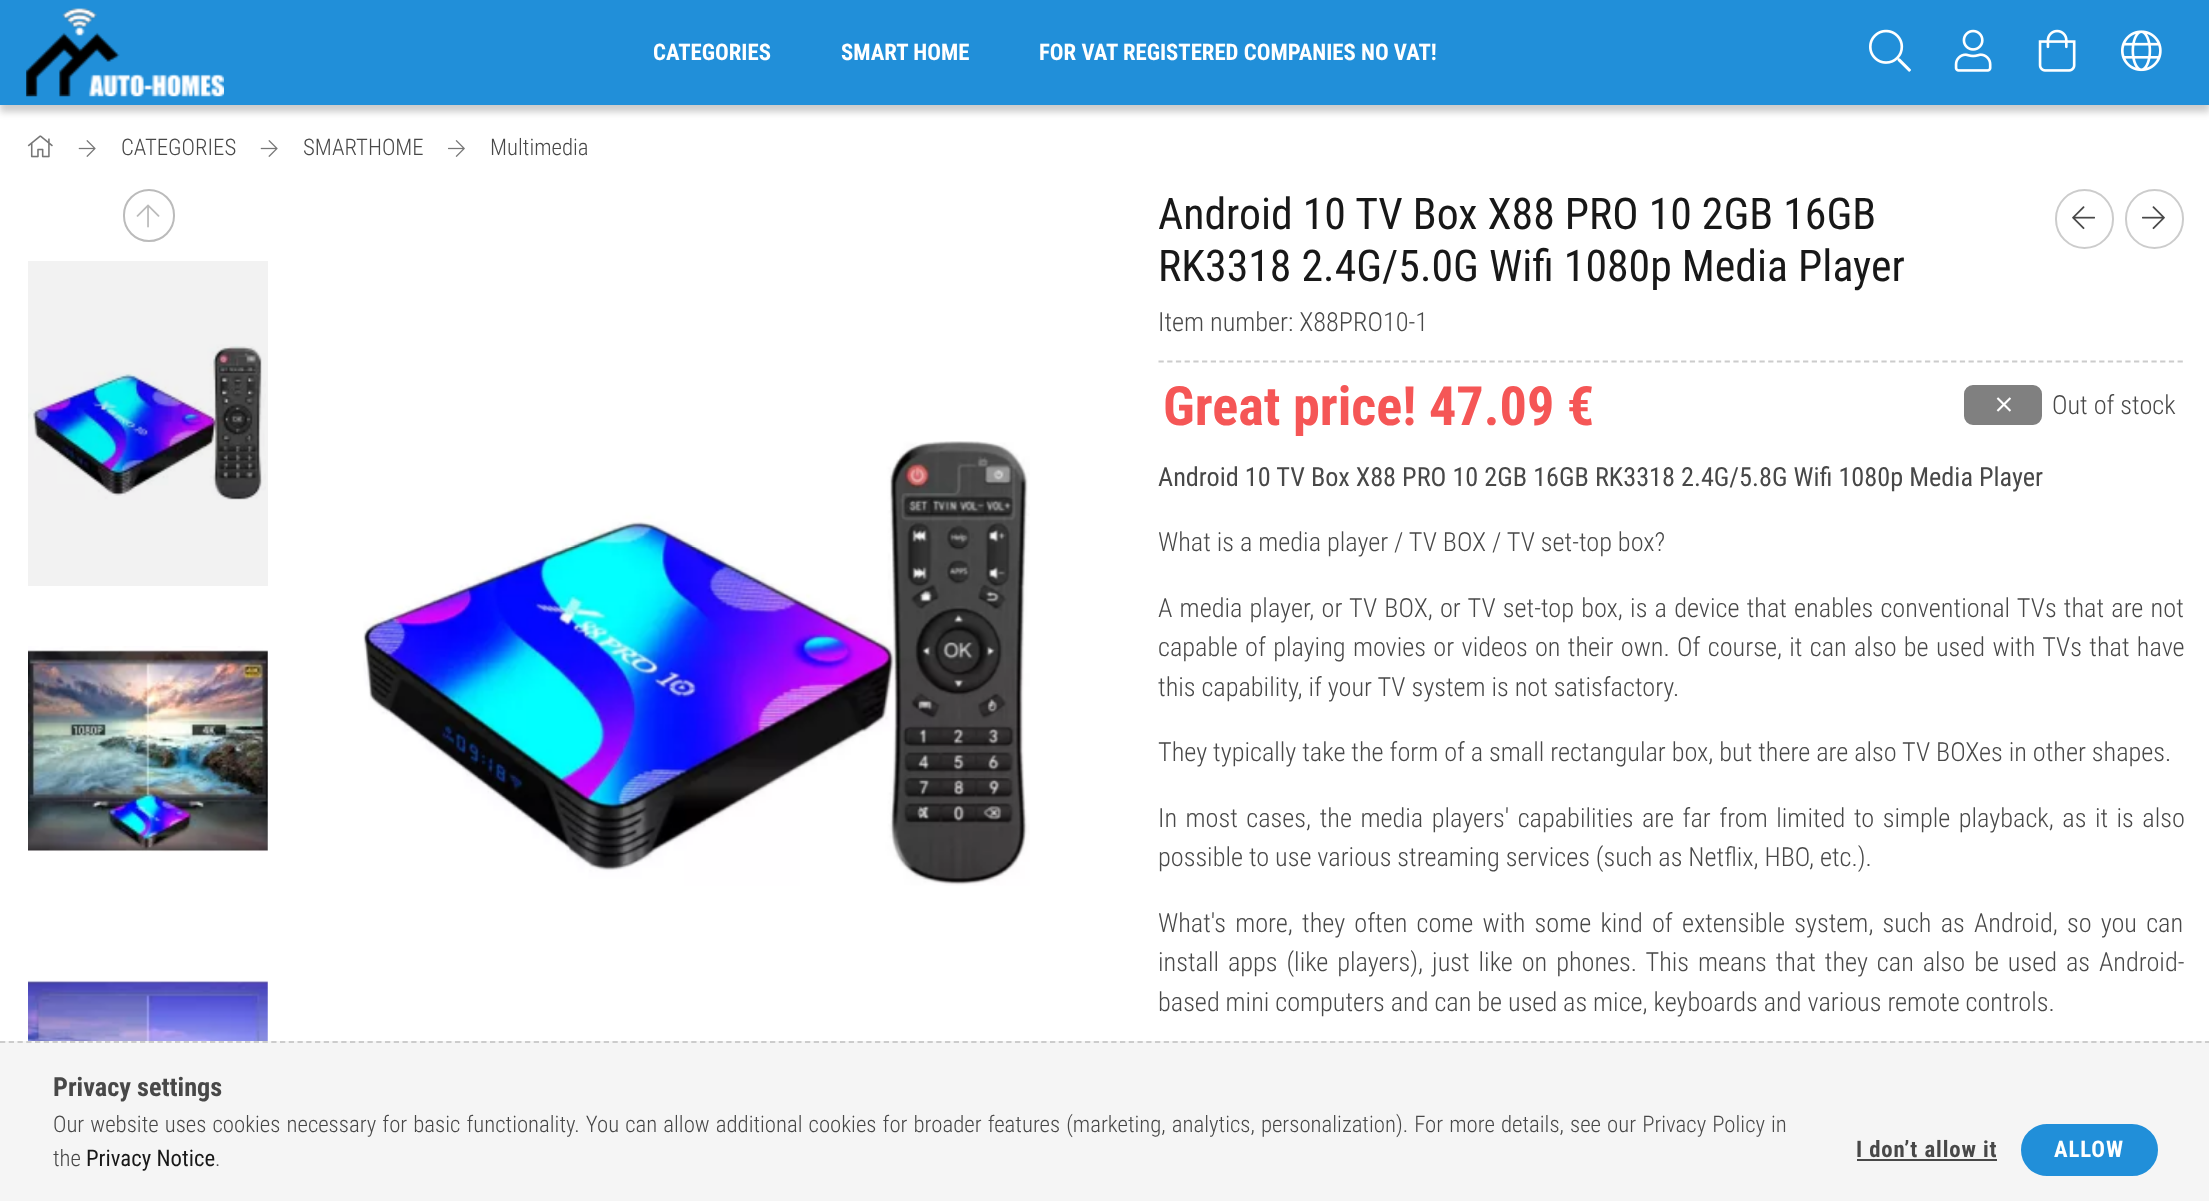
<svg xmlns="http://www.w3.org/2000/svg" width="2209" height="1201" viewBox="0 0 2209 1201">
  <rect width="100%" height="100%" fill="rgb(255,255,255)"/>
  <rect x="28" y="261" width="240" height="325" fill="rgb(242,242,242)"/>
  <rect x="0" y="7" width="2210" height="105" fill="rgba(0,0,0,0.2)" filter="blur(3.5px)"/>
  <rect x="0" y="0" width="2209" height="105" fill="rgb(33,143,217)"/>
  <image x="26" y="8" width="198" height="89" href="pic1.png"/>
  <g font-family="Roboto Condensed" font-size="22.75" font-weight="bold" fill="rgb(255,255,255)">
    <text x="653" y="60">CATEGORIES</text>
    <text x="841" y="60">SMART HOME</text>
    <text x="1039" y="60">FOR VAT REGISTERED COMPANIES NO VAT!</text>
  </g>
  <image x="1869" y="29" width="42" height="43" href="pic2.png"/>
  <image x="1954" y="29" width="38" height="43" href="pic3.png"/>
  <image x="2038" y="29" width="38" height="43" href="pic4.png"/>
  <image x="2121" y="30" width="41" height="42" href="pic5.png"/>
  <image x="27" y="135" width="26" height="23" href="pic6.png"/>
  <image x="78" y="140" width="18" height="17" href="pic7.png"/>
  <text x="121" y="155" font-family="Roboto Condensed" font-size="22.75" font-weight="300" fill="rgb(72,72,72)">CATEGORIES</text>
  <image x="260" y="140" width="18" height="17" href="pic7.png"/>
  <text x="303" y="155" font-family="Roboto Condensed" font-size="22.75" font-weight="300" fill="rgb(72,72,72)">SMARTHOME</text>
  <image x="448" y="140" width="17" height="17" href="pic8.png"/>
  <text x="490" y="155" font-family="Roboto Condensed" font-size="22.75" font-weight="300" fill="rgb(72,72,72)">Multimedia</text>
  <rect x="124" y="190" width="50" height="51" rx="25" fill="none" stroke="rgb(187,187,187)" stroke-width="2"/>
  <image x="136" y="204" width="24" height="24" href="pic9.png"/>
  <image x="28" y="344" width="238" height="156" href="pic10.png"/>
  <image x="28" y="646" width="240" height="206" href="pic11.png"/>
  <image x="28" y="980" width="240" height="61" href="pic12.png"/>
  <image x="363" y="441" width="667" height="445" href="pic13.png"/>
  <path d="M1158.5 361.5H2184" fill="none" stroke="rgb(204,204,204)" stroke-width="1.8" stroke-dasharray="5.25 3.46"/>
  <g font-family="Roboto Condensed" font-size="43.75" fill="rgb(24,24,24)">
    <text>
      <tspan x="1158" y="229">Android 10 TV Box X88 PRO 10 2GB 16GB</tspan>
      <tspan x="1158" y="281">RK3318 2.4G/5.0G Wifi 1080p Media Player</tspan>
    </text>
  </g>
  <rect x="2056" y="190" width="57" height="58" rx="28.5" fill="none" stroke="rgb(204,204,204)" stroke-width="2"/>
  <image x="2072" y="206" width="23" height="24" href="pic14.png"/>
  <rect x="2126" y="190" width="57" height="58" rx="28.5" fill="none" stroke="rgb(204,204,204)" stroke-width="2"/>
  <image x="2142" y="206" width="23" height="24" href="pic15.png"/>
  <text x="1158" y="331" font-family="Roboto Condensed" font-size="26.25" font-weight="300" fill="rgb(72,72,72)">Item number: X88PRO10-1</text>
  <text x="1163" y="425" font-family="Roboto Condensed" font-size="54.25" font-weight="bold" fill="rgb(245,86,86)">Great price! 47.09 €</text>
  <rect x="1965" y="386" width="76" height="38" rx="8" fill="rgb(128,128,128)" stroke="rgb(128,128,128)" stroke-width="2"/>
  <image x="1996" y="397" width="15" height="15" href="pic16.png"/>
  <text x="2052" y="414" font-family="Roboto Condensed" font-size="26.25" font-weight="300" fill="rgb(72,72,72)">Out of stock</text>
  <text x="1158" y="486" font-family="Roboto Condensed" font-size="26.25" fill="rgb(72,72,72)">Android 10 TV Box X88 PRO 10 2GB 16GB RK3318 2.4G/5.8G Wifi 1080p Media Player</text>
  <g font-family="Roboto Condensed" font-size="26.25" font-weight="300" fill="rgb(72,72,72)">
    <text x="1158" y="551">What is a media player / TV BOX / TV set-top box?</text>
    <text>
      <tspan x="1158" y="617" word-spacing="1.3">A media player, or TV BOX, or TV set-top box, is a device that enables conventional TVs that are not</tspan>
      <tspan x="1158" y="656" word-spacing="1.4">capable of playing movies or videos on their own. Of course, it can also be used with TVs that have</tspan>
      <tspan x="1158" y="696">this capability, if your TV system is not satisfactory.</tspan>
    </text>
    <text x="1158" y="761">They typically take the form of a small rectangular box, but there are also TV BOXes in other shapes.</text>
    <text>
      <tspan x="1158" y="827" word-spacing="2.6">In most cases, the media players' capabilities are far from limited to simple playback, as it is also</tspan>
      <tspan x="1158" y="866">possible to use various streaming services (such as Netflix, HBO, etc.).</tspan>
    </text>
    <text>
      <tspan x="1158" y="932" word-spacing="3.25">What's more, they often come with some kind of extensible system, such as Android, so you can</tspan>
      <tspan x="1158" y="971" word-spacing="3">install apps (like players), just like on phones. This means that they can also be used as Android-</tspan>
      <tspan x="1158" y="1011">based mini computers and can be used as mice, keyboards and various remote controls.</tspan>
    </text>
  </g>
  <rect x="0" y="1041" width="2209" height="160" fill="rgb(245,245,245)"/>
  <path d="M0 1042H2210" fill="none" stroke="rgb(204,204,204)" stroke-width="1.8" stroke-dasharray="5.25 3.5"/>
  <text x="53" y="1096" font-family="Roboto Condensed" font-size="26.25" font-weight="bold" fill="rgb(72,72,72)">Privacy settings</text>
  <g font-family="Roboto Condensed" font-size="22.75" font-weight="300" fill="rgb(72,72,72)">
    <text>
      <tspan x="53" y="1132" word-spacing="0.95">Our website uses cookies necessary for basic functionality. You can allow additional cookies for broader features (marketing, analytics, personalization). For more details, see our Privacy Policy in</tspan>
      <tspan x="53" y="1166">the</tspan>
    </text>
  </g>
  <text x="86" y="1166" font-family="Roboto Condensed" font-size="22.75" fill="rgb(24,24,24)">Privacy Notice</text>
  <text x="215" y="1166" font-family="Roboto Condensed" font-size="22.75" font-weight="300" fill="rgb(72,72,72)">.</text>
  <text x="1856" y="1157" font-family="Roboto Condensed" font-size="22.75" font-weight="bold" letter-spacing="0.9" fill="rgb(72,72,72)">I don’t allow it</text>
  <rect x="1857" y="1159" width="140" height="2" fill="rgb(72,72,72)"/>
  <rect x="2022" y="1125" width="135" height="50" rx="25" fill="rgb(33,143,217)" stroke="rgb(33,143,217)" stroke-width="2"/>
  <text x="2054" y="1157" font-family="Roboto Condensed" font-size="22.75" font-weight="bold" letter-spacing="0.9" fill="rgb(255,255,255)">ALLOW</text>
</svg>
